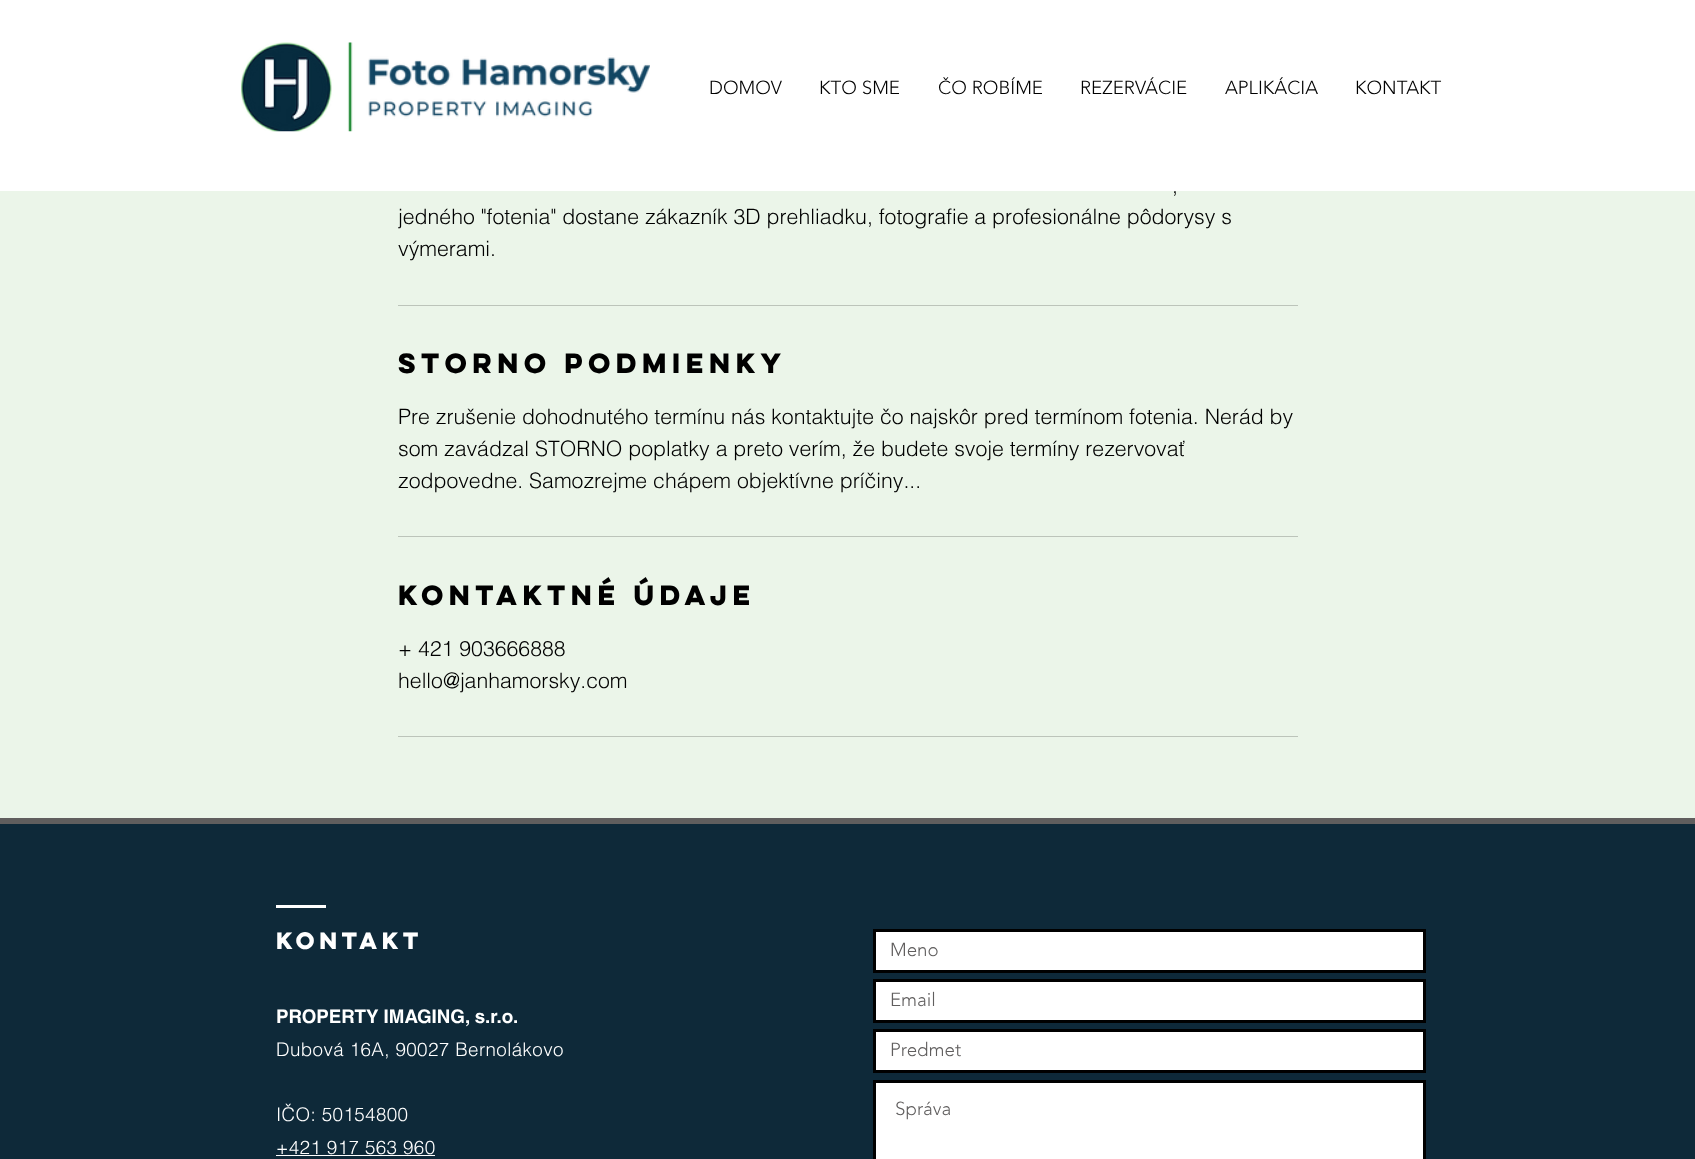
<svg xmlns="http://www.w3.org/2000/svg" width="1695" height="1159" viewBox="0 0 1695 1159">
  <rect width="100%" height="100%" fill="rgb(235,245,233)"/>
  <rect x="0" y="0" width="1695" height="191" fill="rgb(255,255,255)"/>
  <image x="241" y="42" width="409" height="90" href="pic1.png"/>
  <g font-family="'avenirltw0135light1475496'" font-size="18.75" font-weight="300" fill="rgb(0,0,0)">
    <text x="709" y="94">DOMOV</text>
    <text x="819" y="94">KTO SME</text>
    <text x="938" y="94">ČO ROBÍME</text>
    <text x="1080" y="94">REZERVÁCIE</text>
    <text x="1225" y="94">APLIKÁCIA</text>
    <text x="1355" y="94">KONTAKT</text>
  </g>
  <g font-family="helvetica" font-size="21.25" font-weight="300" fill="rgb(0,0,0)">
    <text x="1172" y="193">,</text>
    <text>
      <tspan x="398" y="224">jedného "fotenia" dostane zákazník 3D prehliadku, fotografie a profesionálne pôdorysy s</tspan>
      <tspan x="398" y="256">výmerami.</tspan>
    </text>
  </g>
  <rect x="398" y="305" width="900" height="1" fill="rgb(188,196,186)"/>
  <text x="398" y="373" font-family="'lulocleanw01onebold'" font-size="25" font-weight="bold" fill="rgb(0,0,0)">Storno podmienky</text>
  <g font-family="helvetica" font-size="21.25" font-weight="300" fill="rgb(0,0,0)">
    <text>
      <tspan x="398" y="424">Pre zrušenie dohodnutého termínu nás kontaktujte čo najskôr pred termínom fotenia. Nerád by</tspan>
      <tspan x="398" y="456">som zavádzal STORNO poplatky a preto verím, že budete svoje termíny rezervovať</tspan>
      <tspan x="398" y="488">zodpovedne. Samozrejme chápem objektívne príčiny...</tspan>
    </text>
  </g>
  <rect x="398" y="536" width="900" height="1" fill="rgb(188,196,186)"/>
  <text x="398" y="605" font-family="'lulocleanw01onebold'" font-size="25" font-weight="bold" fill="rgb(0,0,0)">Kontaktné údaje</text>
  <g font-family="helvetica" font-size="21.25" font-weight="300" fill="rgb(0,0,0)">
    <text>
      <tspan x="398" y="656">+ 421 903666888</tspan>
      <tspan x="398" y="688">hello@janhamorsky.com</tspan>
    </text>
  </g>
  <rect x="398" y="736" width="900" height="1" fill="rgb(188,196,186)"/>
  <rect x="0" y="824" width="1695" height="335" fill="rgb(14,41,57)"/>
  <rect x="0" y="818" width="1695" height="6" fill="rgb(96,94,94)"/>
  <rect x="276" y="905" width="50" height="3" fill="rgb(255,255,255)"/>
  <text x="276" y="949" font-family="'lulocleanw01onebold'" font-size="21.25" font-weight="bold" fill="rgb(255,255,255)">KONTAKT</text>
  <rect x="874.5" y="930.5" width="550" height="41" fill="rgb(255,255,255)" stroke="rgb(0,0,0)" stroke-width="3"/>
  <text x="890" y="956" font-family="'avenirltw0135light1475496'" font-size="18.75" font-weight="300" fill="rgb(96,94,94)">Meno</text>
  <rect x="874.5" y="980.5" width="550" height="41" fill="rgb(255,255,255)" stroke="rgb(0,0,0)" stroke-width="3"/>
  <text x="890" y="1006" font-family="'avenirltw0135light1475496'" font-size="18.75" font-weight="300" fill="rgb(96,94,94)">Email</text>
  <rect x="874.5" y="1030.5" width="550" height="41" fill="rgb(255,255,255)" stroke="rgb(0,0,0)" stroke-width="3"/>
  <text x="890" y="1056" font-family="'avenirltw0135light1475496'" font-size="18.75" font-weight="300" fill="rgb(96,94,94)">Predmet</text>
  <rect x="874.5" y="1081.5" width="550" height="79" fill="rgb(255,255,255)" stroke="rgb(0,0,0)" stroke-width="3"/>
  <text x="895" y="1115" font-family="'avenirltw0135light1475496'" font-size="18.75" font-weight="300" fill="rgb(96,94,94)">Správa</text>
  <text x="276" y="1023" font-family="helvetica" font-size="18.75" font-weight="bold" fill="rgb(255,255,255)">PROPERTY IMAGING, s.r.o.</text>
  <g font-family="helvetica" font-size="18.75" font-weight="300" letter-spacing="0.4" fill="rgb(255,255,255)">
    <text x="276" y="1056">Dubová 16A, 90027 Bernolákovo</text>
    <text>
      <tspan x="276" y="1121">IČO: 50154800</tspan>
      <tspan x="276" y="1154">+421 917 563 960</tspan>
    </text>
  </g>
  <rect x="276" y="1155" width="159" height="1" fill="rgb(255,255,255)"/>
</svg>
